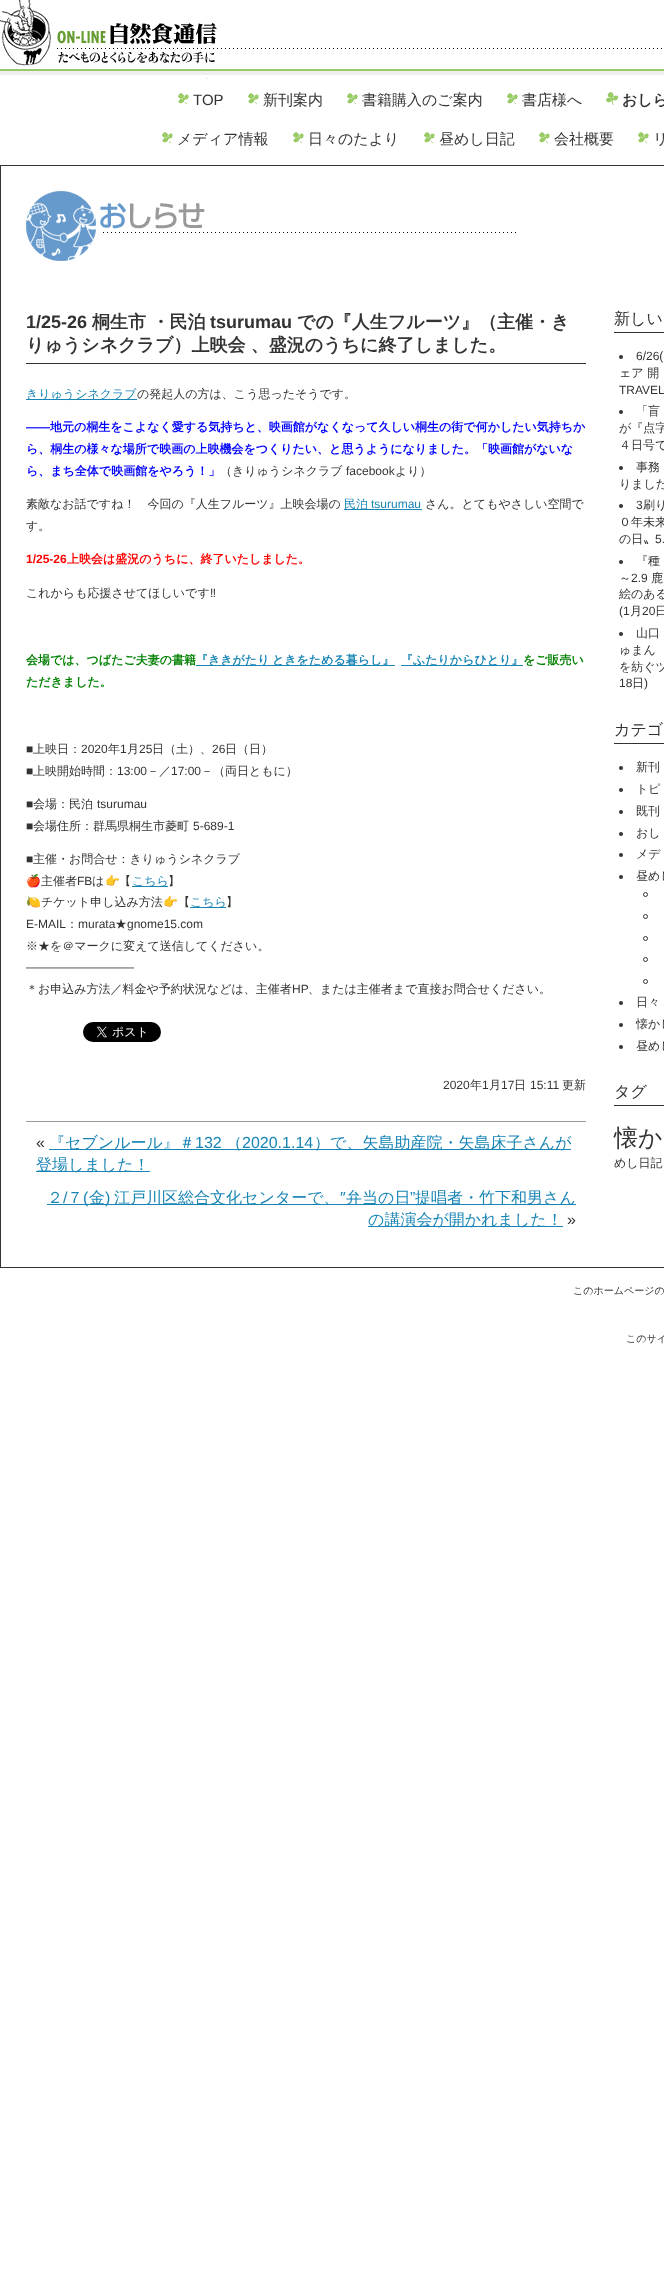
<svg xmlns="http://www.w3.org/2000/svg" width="664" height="2292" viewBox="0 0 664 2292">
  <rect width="100%" height="100%" fill="rgb(255,255,255)"/>
  <image x="217" y="48" width="447" height="27" href="pic1.png"/>
  <image x="0" y="0" width="217" height="79" href="pic2.png"/>
  <image x="178" y="93" width="11" height="12" href="pic3.png"/>
  <text x="193" y="105" font-family="Liberation Sans" font-size="15" fill="rgb(51,51,51)">TOP</text>
  <image x="248" y="93" width="11" height="12" href="pic3.png"/>
  <text x="263" y="105" font-family="WenQuanYi Zen Hei" font-size="15" font-weight="500" fill="rgb(51,51,51)">新刊案内</text>
  <image x="347" y="93" width="11" height="12" href="pic3.png"/>
  <text x="362" y="105" font-family="WenQuanYi Zen Hei" font-size="15" font-weight="500" fill="rgb(51,51,51)">書籍購入のご案内</text>
  <image x="507" y="93" width="11" height="12" href="pic3.png"/>
  <text x="522" y="105" font-family="WenQuanYi Zen Hei" font-size="15" font-weight="500" fill="rgb(51,51,51)">書店様へ</text>
  <image x="606" y="92" width="13" height="13" href="pic4.png"/>
  <text x="622" y="105" font-family="WenQuanYi Zen Hei" font-size="15" font-weight="bold" fill="rgb(51,51,51)">おしら</text>
  <image x="162" y="132" width="11" height="12" href="pic3.png"/>
  <text x="177" y="144" font-family="WenQuanYi Zen Hei" font-size="15" font-weight="500" fill="rgb(51,51,51)">メディア情報</text>
  <image x="293" y="132" width="11" height="12" href="pic3.png"/>
  <text x="308" y="144" font-family="WenQuanYi Zen Hei" font-size="15" font-weight="500" fill="rgb(51,51,51)">日々のたより</text>
  <image x="424" y="132" width="11" height="12" href="pic3.png"/>
  <text x="439" y="144" font-family="WenQuanYi Zen Hei" font-size="15" font-weight="500" fill="rgb(51,51,51)">昼めし日記</text>
  <image x="539" y="132" width="11" height="12" href="pic3.png"/>
  <text x="554" y="144" font-family="WenQuanYi Zen Hei" font-size="15" font-weight="500" fill="rgb(51,51,51)">会社概要</text>
  <image x="638" y="132" width="11" height="12" href="pic3.png"/>
  <text x="653" y="144" font-family="WenQuanYi Zen Hei" font-size="15" font-weight="500" fill="rgb(51,51,51)">リ</text>
  <rect x="0.5" y="165.5" width="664" height="1102" fill="none" stroke="rgb(51,51,51)"/>
  <image x="26" y="191" width="490" height="70" href="pic5.png"/>
  <rect x="26" y="363" width="560" height="1" fill="rgb(51,51,51)"/>
  <text x="26" y="328" font-family="Liberation Sans" font-size="18" font-weight="bold" fill="rgb(51,51,51)">1/25-26</text>
  <text x="92" y="328" font-family="WenQuanYi Zen Hei" font-size="18" font-weight="bold" fill="rgb(51,51,51)">桐生市 ・民泊</text>
  <text x="210" y="328" font-family="Liberation Sans" font-size="18" font-weight="bold" fill="rgb(51,51,51)">tsurumau</text>
  <g font-family="WenQuanYi Zen Hei" font-size="18" font-weight="bold" fill="rgb(51,51,51)">
    <text x="297" y="328">での『人生フルーツ』（主催・き</text>
    <text x="26" y="351">りゅうシネクラブ）上映会 、盛況のうちに終了しました。</text>
  </g>
  <rect x="26" y="399" width="111" height="1" fill="rgb(25,133,181)"/>
  <text x="26" y="398" font-family="WenQuanYi Zen Hei" font-size="12" font-weight="500" fill="rgb(25,133,181)">きりゅうシネクラブ</text>
  <text x="137" y="398" font-family="WenQuanYi Zen Hei" font-size="12" font-weight="500" fill="rgb(51,51,51)">の発起人の方は、こう思ったそうです。</text>
  <text x="26" y="431" font-family="Liberation Sans" font-size="12" font-weight="bold" fill="rgb(0,0,255)">――</text>
  <g font-family="WenQuanYi Zen Hei" font-size="12" font-weight="bold" fill="rgb(0,0,255)">
    <text x="50" y="431">地元の桐生をこよなく愛する気持ちと、映画館がなくなって久しい桐生の街で何かしたい気持ちか</text>
    <text>
      <tspan x="26" y="453">ら、桐生の様々な場所で映画の上映機会をつくりたい、と思うようになりました。「映画館がないな</tspan>
      <tspan x="26" y="475">ら、まち全体で映画館をやろう！」</tspan>
    </text>
  </g>
  <text x="220" y="475" font-family="WenQuanYi Zen Hei" font-size="12" font-weight="500" fill="rgb(51,51,51)">（きりゅうシネクラブ</text>
  <text x="346" y="475" font-family="Liberation Sans" font-size="12" fill="rgb(51,51,51)">facebook</text>
  <g font-family="WenQuanYi Zen Hei" font-size="12" font-weight="500" fill="rgb(51,51,51)">
    <text x="395" y="475">より）</text>
    <text x="26" y="508">素敵なお話ですね！　今回の『人生フルーツ』上映会場の</text>
  </g>
  <rect x="344" y="509" width="78" height="1" fill="rgb(25,133,181)"/>
  <text x="344" y="508" font-family="WenQuanYi Zen Hei" font-size="12" font-weight="500" fill="rgb(25,133,181)">民泊</text>
  <text x="371" y="508" font-family="Liberation Sans" font-size="12" fill="rgb(25,133,181)">tsurumau</text>
  <g font-family="WenQuanYi Zen Hei" font-size="12" font-weight="500" fill="rgb(51,51,51)">
    <text x="425" y="508">さん。とてもやさしい空間で</text>
    <text x="26" y="530">す。</text>
  </g>
  <text x="26" y="563" font-family="Liberation Sans" font-size="12" font-weight="bold" fill="rgb(255,0,0)">1/25-26</text>
  <text x="67" y="563" font-family="WenQuanYi Zen Hei" font-size="12" font-weight="bold" fill="rgb(255,0,0)">上映会は盛況のうちに、終了いたしました。</text>
  <text x="26" y="597" font-family="WenQuanYi Zen Hei" font-size="12" font-weight="500" fill="rgb(51,51,51)">これからも応援させてほしいです</text>
  <text x="210" y="597" font-family="Liberation Sans" font-size="12" fill="rgb(51,51,51)">‼</text>
  <text x="26" y="664" font-family="WenQuanYi Zen Hei" font-size="12" font-weight="bold" fill="rgb(0,128,0)">会場では、つばたご夫妻の書籍</text>
  <rect x="196" y="665" width="199" height="1" fill="rgb(25,133,181)"/>
  <text x="196" y="664" word-spacing="-1" font-family="WenQuanYi Zen Hei" font-size="12" font-weight="bold" fill="rgb(25,133,181)">『ききがたり ときをためる暮らし』</text>
  <rect x="401" y="665" width="122" height="1" fill="rgb(25,133,181)"/>
  <text x="401" y="664" font-family="WenQuanYi Zen Hei" font-size="12" font-weight="bold" fill="rgb(25,133,181)">『ふたりからひとり』</text>
  <g font-family="WenQuanYi Zen Hei" font-size="12" font-weight="bold" fill="rgb(0,128,0)">
    <text x="523" y="664">をご販売い</text>
    <text x="26" y="686">ただきました。</text>
  </g>
  <text x="26" y="753" font-family="Liberation Sans" font-size="12" fill="rgb(51,51,51)">■</text>
  <text x="33" y="753" font-family="WenQuanYi Zen Hei" font-size="12" font-weight="500" fill="rgb(51,51,51)">上映日：</text>
  <text x="81" y="753" font-family="Liberation Sans" font-size="12" fill="rgb(51,51,51)">2020</text>
  <text x="108" y="753" font-family="WenQuanYi Zen Hei" font-size="12" font-weight="500" fill="rgb(51,51,51)">年</text>
  <text x="120" y="753" font-family="Liberation Sans" font-size="12" fill="rgb(51,51,51)">1</text>
  <text x="127" y="753" font-family="WenQuanYi Zen Hei" font-size="12" font-weight="500" fill="rgb(51,51,51)">月</text>
  <text x="139" y="753" font-family="Liberation Sans" font-size="12" fill="rgb(51,51,51)">25</text>
  <text x="152" y="753" font-family="WenQuanYi Zen Hei" font-size="12" font-weight="500" fill="rgb(51,51,51)">日（土）、</text>
  <text x="212" y="753" font-family="Liberation Sans" font-size="12" fill="rgb(51,51,51)">26</text>
  <text x="225" y="753" font-family="WenQuanYi Zen Hei" font-size="12" font-weight="500" fill="rgb(51,51,51)">日（日）</text>
  <text x="26" y="775" font-family="Liberation Sans" font-size="12" fill="rgb(51,51,51)">■</text>
  <text x="33" y="775" font-family="WenQuanYi Zen Hei" font-size="12" font-weight="500" fill="rgb(51,51,51)">上映開始時間：</text>
  <text x="117" y="775" font-family="Liberation Sans" font-size="12" fill="rgb(51,51,51)">13:00</text>
  <text x="147" y="775" font-family="WenQuanYi Zen Hei" font-size="12" font-weight="500" fill="rgb(51,51,51)">－／</text>
  <text x="171" y="775" font-family="Liberation Sans" font-size="12" fill="rgb(51,51,51)">17:00</text>
  <text x="201" y="775" font-family="WenQuanYi Zen Hei" font-size="12" font-weight="500" fill="rgb(51,51,51)">－（両日ともに）</text>
  <text x="26" y="808" font-family="Liberation Sans" font-size="12" fill="rgb(51,51,51)">■</text>
  <text x="33" y="808" font-family="WenQuanYi Zen Hei" font-size="12" font-weight="500" fill="rgb(51,51,51)">会場：民泊</text>
  <g font-family="Liberation Sans" font-size="12" fill="rgb(51,51,51)">
    <text x="97" y="808">tsurumau</text>
    <text x="26" y="830">■</text>
  </g>
  <text x="33" y="830" font-family="WenQuanYi Zen Hei" font-size="12" font-weight="500" fill="rgb(51,51,51)">会場住所：群馬県桐生市菱町</text>
  <g font-family="Liberation Sans" font-size="12" fill="rgb(51,51,51)">
    <text x="193" y="830">5-689-1</text>
    <text x="26" y="863">■</text>
  </g>
  <text x="33" y="863" font-family="WenQuanYi Zen Hei" font-size="12" font-weight="500" fill="rgb(51,51,51)">主催・お問合せ：きりゅうシネクラブ</text>
  <text x="26" y="885" font-family="Noto Color Emoji" font-size="12" fill="rgb(51,51,51)">🍎</text>
  <text x="41" y="885" font-family="WenQuanYi Zen Hei" font-size="12" font-weight="500" fill="rgb(51,51,51)">主催者</text>
  <text x="77" y="885" font-family="Liberation Sans" font-size="12" fill="rgb(51,51,51)">FB</text>
  <text x="92" y="885" font-family="WenQuanYi Zen Hei" font-size="12" font-weight="500" fill="rgb(51,51,51)">は</text>
  <text x="105" y="885" font-family="Noto Color Emoji" font-size="12" fill="rgb(51,51,51)">👉</text>
  <text x="119" y="885" font-family="WenQuanYi Zen Hei" font-size="12" font-weight="500" fill="rgb(51,51,51)">【</text>
  <rect x="132" y="886" width="36" height="1" fill="rgb(25,133,181)"/>
  <text x="132" y="885" font-family="WenQuanYi Zen Hei" font-size="12" font-weight="500" fill="rgb(25,133,181)">こちら</text>
  <text x="168" y="885" font-family="WenQuanYi Zen Hei" font-size="12" font-weight="500" fill="rgb(51,51,51)">】</text>
  <text x="26" y="906" font-family="Noto Color Emoji" font-size="12" fill="rgb(51,51,51)">🍋</text>
  <text x="41" y="906" font-family="WenQuanYi Zen Hei" font-size="12" font-weight="500" fill="rgb(51,51,51)">チケット申し込み方法</text>
  <text x="163" y="906" font-family="Noto Color Emoji" font-size="12" fill="rgb(51,51,51)">👉</text>
  <text x="178" y="906" font-family="WenQuanYi Zen Hei" font-size="12" font-weight="500" fill="rgb(51,51,51)">【</text>
  <rect x="190" y="907" width="36" height="1" fill="rgb(25,133,181)"/>
  <text x="190" y="906" font-family="WenQuanYi Zen Hei" font-size="12" font-weight="500" fill="rgb(25,133,181)">こちら</text>
  <text x="226" y="906" font-family="WenQuanYi Zen Hei" font-size="12" font-weight="500" fill="rgb(51,51,51)">】</text>
  <text x="26" y="928" font-family="Liberation Sans" font-size="12" fill="rgb(51,51,51)">E-MAIL</text>
  <text x="66" y="928" font-family="WenQuanYi Zen Hei" font-size="12" font-weight="500" fill="rgb(51,51,51)">：</text>
  <text x="78" y="928" font-family="Liberation Sans" font-size="12" fill="rgb(51,51,51)">murata</text>
  <text x="115" y="928" font-family="WenQuanYi Zen Hei" font-size="12" font-weight="500" fill="rgb(51,51,51)">★</text>
  <text x="127" y="928" font-family="Liberation Sans" font-size="12" fill="rgb(51,51,51)">gnome15.com</text>
  <text x="26" y="950" font-family="WenQuanYi Zen Hei" font-size="12" font-weight="500" fill="rgb(51,51,51)">※★を＠マークに変えて送信してください。</text>
  <text x="26" y="971" font-family="Liberation Sans" font-size="12" fill="rgb(51,51,51)">―――――――――</text>
  <text x="26" y="993" font-family="WenQuanYi Zen Hei" font-size="12" font-weight="500" fill="rgb(51,51,51)">＊お申込み方法／料金や予約状況などは、主催者</text>
  <text x="292" y="993" font-family="Liberation Sans" font-size="12" fill="rgb(51,51,51)">HP</text>
  <text x="308" y="993" font-family="WenQuanYi Zen Hei" font-size="12" font-weight="500" fill="rgb(51,51,51)">、または主催者まで直接お問合せください。</text>
  <image x="83" y="1022" width="78" height="20" href="pic6.png"/>
  <text x="443" y="1089" font-family="Liberation Sans" font-size="12" fill="rgb(51,51,51)">2020</text>
  <text x="470" y="1089" font-family="WenQuanYi Zen Hei" font-size="12" font-weight="500" fill="rgb(51,51,51)">年</text>
  <text x="482" y="1089" font-family="Liberation Sans" font-size="12" fill="rgb(51,51,51)">1</text>
  <text x="489" y="1089" font-family="WenQuanYi Zen Hei" font-size="12" font-weight="500" fill="rgb(51,51,51)">月</text>
  <text x="501" y="1089" font-family="Liberation Sans" font-size="12" fill="rgb(51,51,51)">17</text>
  <text x="514" y="1089" font-family="WenQuanYi Zen Hei" font-size="12" font-weight="500" fill="rgb(51,51,51)">日</text>
  <text x="530" y="1089" font-family="Liberation Sans" font-size="12" fill="rgb(51,51,51)">15:11</text>
  <text x="562" y="1089" font-family="WenQuanYi Zen Hei" font-size="12" font-weight="500" fill="rgb(51,51,51)">更新</text>
  <rect x="26" y="1121" width="560" height="1" fill="rgb(153,153,153)"/>
  <text x="36" y="1148" font-family="Liberation Sans" font-size="16" fill="rgb(51,51,51)">«</text>
  <rect x="49" y="1149" width="522" height="1" fill="rgb(25,133,181)"/>
  <text x="49" y="1148" font-family="WenQuanYi Zen Hei" font-size="16" font-weight="500" fill="rgb(25,133,181)">『セブンルール』＃</text>
  <text x="195" y="1148" font-family="Liberation Sans" font-size="16" fill="rgb(25,133,181)">132</text>
  <text x="226" y="1148" font-family="WenQuanYi Zen Hei" font-size="16" font-weight="500" fill="rgb(25,133,181)">（</text>
  <text x="242" y="1148" font-family="Liberation Sans" font-size="16" fill="rgb(25,133,181)">2020.1.14</text>
  <text x="314" y="1148" font-family="WenQuanYi Zen Hei" font-size="16" font-weight="500" fill="rgb(25,133,181)">）で、矢島助産院・矢島床子さんが</text>
  <rect x="36" y="1171" width="114" height="1" fill="rgb(25,133,181)"/>
  <g font-family="WenQuanYi Zen Hei" font-size="16" font-weight="500" fill="rgb(25,133,181)">
    <text x="36" y="1170">登場しました！</text>
    <text x="47" y="1203">２</text>
  </g>
  <text x="63" y="1203" font-family="Liberation Sans" font-size="16" fill="rgb(25,133,181)">/</text>
  <text x="67" y="1203" font-family="WenQuanYi Zen Hei" font-size="16" font-weight="500" fill="rgb(25,133,181)">７</text>
  <rect x="47" y="1204" width="529" height="1" fill="rgb(25,133,181)"/>
  <text x="83" y="1203" font-family="Liberation Sans" font-size="16" fill="rgb(25,133,181)">(</text>
  <text x="89" y="1203" font-family="WenQuanYi Zen Hei" font-size="16" font-weight="500" fill="rgb(25,133,181)">金</text>
  <text x="105" y="1203" font-family="Liberation Sans" font-size="16" fill="rgb(25,133,181)">)</text>
  <text x="114" y="1203" font-family="WenQuanYi Zen Hei" font-size="16" font-weight="500" fill="rgb(25,133,181)">江戸川区総合文化センターで、</text>
  <text x="340" y="1203" font-family="Liberation Sans" font-size="16" fill="rgb(25,133,181)">″</text>
  <text x="346" y="1203" font-family="WenQuanYi Zen Hei" font-size="16" font-weight="500" fill="rgb(25,133,181)">弁当の日</text>
  <text x="410" y="1203" font-family="Liberation Sans" font-size="16" fill="rgb(25,133,181)">”</text>
  <text x="415" y="1203" font-family="WenQuanYi Zen Hei" font-size="16" font-weight="500" fill="rgb(25,133,181)">提唱者・竹下和男さん</text>
  <rect x="368" y="1226" width="195" height="1" fill="rgb(25,133,181)"/>
  <text x="368" y="1225" font-family="WenQuanYi Zen Hei" font-size="16" font-weight="500" fill="rgb(25,133,181)">の講演会が開かれました！</text>
  <text x="567" y="1225" font-family="Liberation Sans" font-size="16" fill="rgb(51,51,51)">»</text>
  <rect x="614" y="332" width="50" height="1" fill="rgb(51,51,51)"/>
  <text x="614" y="324" font-family="WenQuanYi Zen Hei" font-size="16" font-weight="500" fill="rgb(51,51,51)">新しい</text>
  <circle cx="621" cy="357" r="2" fill="rgb(51,51,51)"/>
  <text x="636" y="360" font-family="Liberation Sans" font-size="12" fill="rgb(51,51,51)">6/26(</text>
  <text x="619" y="377" font-family="WenQuanYi Zen Hei" font-size="12" font-weight="500" fill="rgb(51,51,51)">ェア 開</text>
  <text x="619" y="394" font-family="Liberation Sans" font-size="12" fill="rgb(51,51,51)">TRAVEL</text>
  <circle cx="621" cy="412" r="2" fill="rgb(51,51,51)"/>
  <g font-family="WenQuanYi Zen Hei" font-size="12" font-weight="500" fill="rgb(51,51,51)">
    <text x="636" y="415">「盲</text>
    <text>
      <tspan x="619" y="432">が『点字</tspan>
      <tspan x="619" y="449">４日号で</tspan>
    </text>
  </g>
  <circle cx="621" cy="468" r="2" fill="rgb(51,51,51)"/>
  <g font-family="WenQuanYi Zen Hei" font-size="12" font-weight="500" fill="rgb(51,51,51)">
    <text x="636" y="471">事務</text>
    <text x="619" y="488">りました</text>
  </g>
  <circle cx="621" cy="506" r="2" fill="rgb(51,51,51)"/>
  <text x="636" y="509" font-family="Liberation Sans" font-size="12" fill="rgb(51,51,51)">3</text>
  <g font-family="WenQuanYi Zen Hei" font-size="12" font-weight="500" fill="rgb(51,51,51)">
    <text x="643" y="509">刷り</text>
    <text>
      <tspan x="619" y="526">０年未来</tspan>
      <tspan x="619" y="543">の日〟</tspan>
    </text>
  </g>
  <text x="655" y="543" font-family="Liberation Sans" font-size="12" fill="rgb(51,51,51)">5.</text>
  <circle cx="621" cy="562" r="2" fill="rgb(51,51,51)"/>
  <g font-family="WenQuanYi Zen Hei" font-size="12" font-weight="500" fill="rgb(51,51,51)">
    <text x="636" y="565">『種</text>
    <text x="619" y="582">～</text>
  </g>
  <text x="631" y="582" font-family="Liberation Sans" font-size="12" fill="rgb(51,51,51)">2.9</text>
  <g font-family="WenQuanYi Zen Hei" font-size="12" font-weight="500" fill="rgb(51,51,51)">
    <text x="651" y="582">鹿</text>
    <text x="619" y="598">絵のある</text>
  </g>
  <text x="619" y="615" font-family="Liberation Sans" font-size="12" fill="rgb(51,51,51)">(1</text>
  <text x="630" y="615" font-family="WenQuanYi Zen Hei" font-size="12" font-weight="500" fill="rgb(51,51,51)">月</text>
  <text x="642" y="615" font-family="Liberation Sans" font-size="12" fill="rgb(51,51,51)">20</text>
  <text x="655" y="615" font-family="WenQuanYi Zen Hei" font-size="12" font-weight="500" fill="rgb(51,51,51)">日</text>
  <circle cx="621" cy="634" r="2" fill="rgb(51,51,51)"/>
  <g font-family="WenQuanYi Zen Hei" font-size="12" font-weight="500" fill="rgb(51,51,51)">
    <text x="636" y="637">山口</text>
    <text>
      <tspan x="619" y="654">ゅまん</tspan>
      <tspan x="619" y="671">を紡ぐツ</tspan>
    </text>
  </g>
  <text x="619" y="687" font-family="Liberation Sans" font-size="12" fill="rgb(51,51,51)">18</text>
  <text x="632" y="687" font-family="WenQuanYi Zen Hei" font-size="12" font-weight="500" fill="rgb(51,51,51)">日</text>
  <text x="644" y="687" font-family="Liberation Sans" font-size="12" fill="rgb(51,51,51)">)</text>
  <rect x="614" y="743" width="50" height="1" fill="rgb(51,51,51)"/>
  <text x="614" y="735" font-family="WenQuanYi Zen Hei" font-size="16" font-weight="500" fill="rgb(51,51,51)">カテゴ</text>
  <circle cx="621" cy="768" r="2" fill="rgb(51,51,51)"/>
  <text x="636" y="771" font-family="WenQuanYi Zen Hei" font-size="12" font-weight="500" fill="rgb(51,51,51)">新刊</text>
  <circle cx="621" cy="790" r="2" fill="rgb(51,51,51)"/>
  <text x="636" y="793" font-family="WenQuanYi Zen Hei" font-size="12" font-weight="500" fill="rgb(51,51,51)">トピ</text>
  <circle cx="621" cy="812" r="2" fill="rgb(51,51,51)"/>
  <text x="636" y="815" font-family="WenQuanYi Zen Hei" font-size="12" font-weight="500" fill="rgb(51,51,51)">既刊</text>
  <circle cx="621" cy="834" r="2" fill="rgb(51,51,51)"/>
  <text x="636" y="837" font-family="WenQuanYi Zen Hei" font-size="12" font-weight="500" fill="rgb(51,51,51)">おし</text>
  <circle cx="621" cy="855" r="2" fill="rgb(51,51,51)"/>
  <text x="636" y="858" font-family="WenQuanYi Zen Hei" font-size="12" font-weight="500" fill="rgb(51,51,51)">メデ</text>
  <circle cx="621" cy="877" r="2" fill="rgb(51,51,51)"/>
  <text x="636" y="880" font-family="WenQuanYi Zen Hei" font-size="12" font-weight="500" fill="rgb(51,51,51)">昼めし</text>
  <circle cx="645.5" cy="894.5" r="2" fill="none" stroke="rgb(51,51,51)"/>
  <circle cx="645.5" cy="916.5" r="2" fill="none" stroke="rgb(51,51,51)"/>
  <circle cx="645.5" cy="938.5" r="2" fill="none" stroke="rgb(51,51,51)"/>
  <circle cx="645.5" cy="959.5" r="2" fill="none" stroke="rgb(51,51,51)"/>
  <circle cx="645.5" cy="981.5" r="2" fill="none" stroke="rgb(51,51,51)"/>
  <circle cx="621" cy="1003" r="2" fill="rgb(51,51,51)"/>
  <text x="636" y="1006" font-family="WenQuanYi Zen Hei" font-size="12" font-weight="500" fill="rgb(51,51,51)">日々</text>
  <circle cx="621" cy="1025" r="2" fill="rgb(51,51,51)"/>
  <text x="636" y="1028" font-family="WenQuanYi Zen Hei" font-size="12" font-weight="500" fill="rgb(51,51,51)">懐かし</text>
  <circle cx="621" cy="1047" r="2" fill="rgb(51,51,51)"/>
  <text x="636" y="1050" font-family="WenQuanYi Zen Hei" font-size="12" font-weight="500" fill="rgb(51,51,51)">昼めし</text>
  <rect x="614" y="1105" width="50" height="1" fill="rgb(51,51,51)"/>
  <text x="614" y="1097" font-family="WenQuanYi Zen Hei" font-size="16" font-weight="500" fill="rgb(51,51,51)">タグ</text>
  <text x="614" y="1146" font-family="WenQuanYi Zen Hei" font-size="24" font-weight="500" fill="rgb(51,51,51)">懐か</text>
  <text x="614" y="1167" font-family="WenQuanYi Zen Hei" font-size="12" font-weight="500" fill="rgb(51,51,51)">めし日記</text>
  <g font-family="WenQuanYi Zen Hei" font-size="10" font-weight="500" fill="rgb(51,51,51)">
    <text x="573" y="1294">このホームページの</text>
    <text x="626" y="1342">このサイ</text>
  </g>
</svg>
